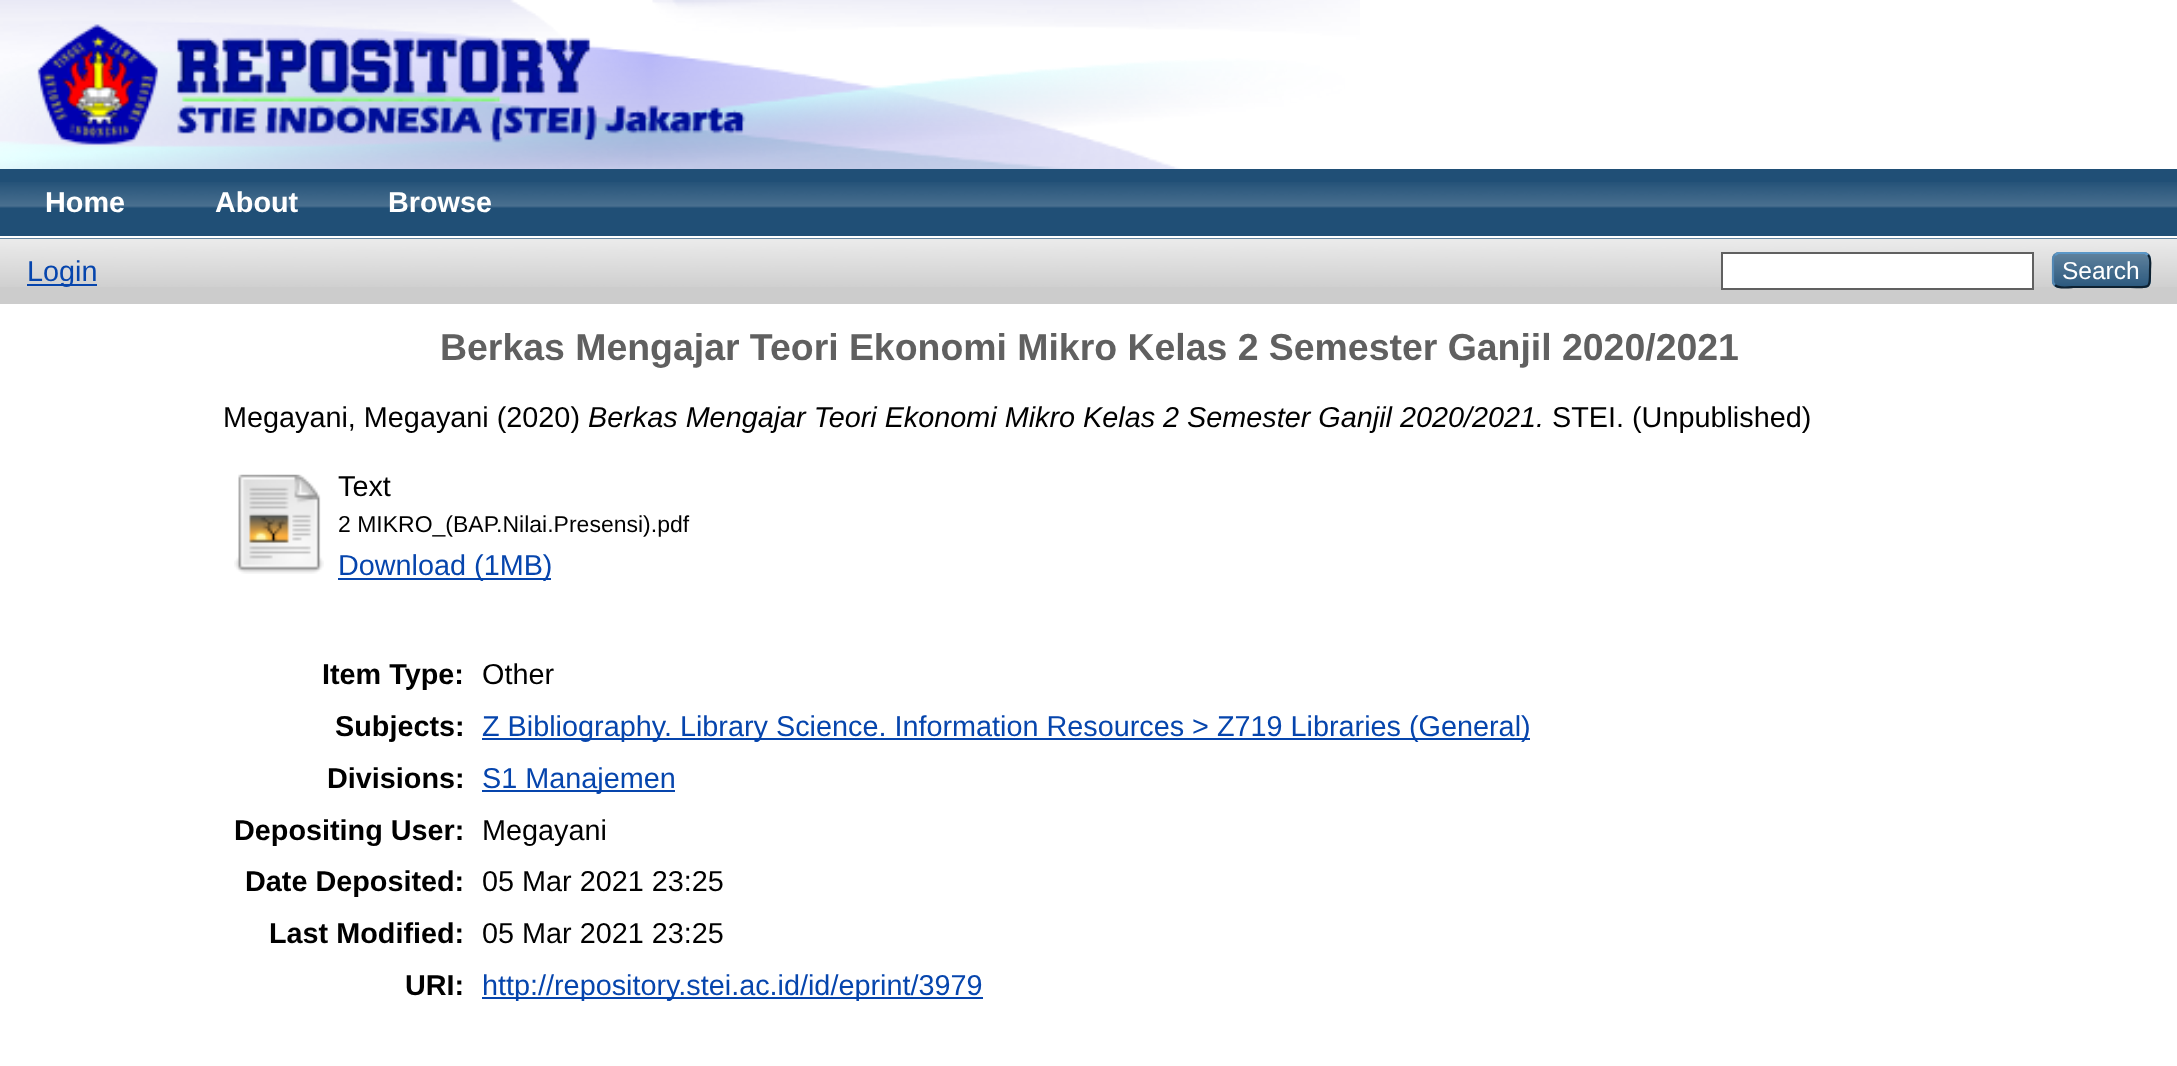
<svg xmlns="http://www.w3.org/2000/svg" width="2177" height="1066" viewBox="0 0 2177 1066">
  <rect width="100%" height="100%" fill="rgb(255,255,255)"/>
  <image x="0" y="0" width="1360" height="169" href="pic1.png"/>
  <image x="37" y="24" width="709" height="121" href="pic2.png"/>
  <rect x="0" y="169" width="2177" height="70" fill="rgb(32,79,118)"/>
  <image x="0" y="182" width="2177" height="26" href="pic3.png"/>
  <rect x="0" y="236" width="2177" height="2" fill="rgb(255,255,255)"/>
  <g font-family="Liberation Sans" font-size="28.8" font-weight="bold" fill="rgb(255,255,255)">
    <text x="45" y="212">Home</text>
    <text x="215" y="212">About</text>
    <text x="388" y="212">Browse</text>
  </g>
  <rect x="0" y="239" width="2177" height="65" fill="rgb(204,204,204)"/>
  <image x="0" y="238" width="2177" height="49" href="pic4.png"/>
  <rect x="27" y="284" width="70" height="2" fill="rgb(6,69,173)"/>
  <text x="27" y="281" font-family="Liberation Sans" font-size="28.8" fill="rgb(6,69,173)">Login</text>
  <rect x="1722" y="253" width="311" height="36" fill="rgb(255,255,255)" stroke="rgb(96,96,96)" stroke-width="2"/>
  <rect x="2052" y="252" width="99" height="36" rx="7" fill="rgb(31,79,118)"/>
  <image x="2052" y="252" width="99" height="36" href="pic5.png"/>
  <path d="M2055 255L2058 253H2145L2148 255" fill="none" stroke="rgb(91,151,199)" stroke-width="2.2"/>
  <path d="M2148 255C2151.5 258 2150 266 2150 270C2150 289.5 2151 287 2130 287H2073C2072 287 2058.5 289 2055 285" fill="none" stroke="rgb(13,33,49)" stroke-width="2.2"/>
  <path d="M2055 285C2053.5 284 2053 282.5 2053 281V259C2053 257.5 2053.5 256 2055 255" fill="none" stroke="rgb(82,135,179)" stroke-width="2.2"/>
  <text x="2062" y="279" font-family="Liberation Sans" font-size="24.5" fill="rgb(255,255,255)">Search</text>
  <text x="440" y="360" word-spacing="-0.1" font-family="Liberation Sans" font-size="37.45" font-weight="bold" fill="rgb(96,96,96)">Berkas Mengajar Teori Ekonomi Mikro Kelas 2 Semester Ganjil 2020/2021</text>
  <text x="223" y="427" font-family="Liberation Sans" font-size="28.8" fill="rgb(0,0,0)">Megayani, Megayani (2020)</text>
  <text x="588" y="427" font-family="Liberation Sans" font-size="28.8" font-style="italic" fill="rgb(0,0,0)">Berkas Mengajar Teori Ekonomi Mikro Kelas 2 Semester Ganjil 2020/2021.</text>
  <text x="1552" y="427" font-family="Liberation Sans" font-size="28.8" fill="rgb(0,0,0)">STEI. (Unpublished)</text>
  <image x="234" y="474" width="90" height="100" href="pic6.png"/>
  <text x="338" y="496" font-family="Liberation Sans" font-size="28.8" fill="rgb(0,0,0)">Text</text>
  <text x="338" y="532" font-family="Liberation Sans" font-size="23" fill="rgb(0,0,0)">2 MIKRO_(BAP.Nilai.Presensi).pdf</text>
  <rect x="338" y="578" width="213" height="2" fill="rgb(6,69,173)"/>
  <text x="338" y="575" font-family="Liberation Sans" font-size="28.8" fill="rgb(6,69,173)">Download (1MB)</text>
  <text x="322" y="684" font-family="Liberation Sans" font-size="28.8" font-weight="bold" fill="rgb(0,0,0)">Item Type:</text>
  <text x="482" y="684" font-family="Liberation Sans" font-size="28.8" fill="rgb(0,0,0)">Other</text>
  <text x="335" y="736" font-family="Liberation Sans" font-size="28.8" font-weight="bold" fill="rgb(0,0,0)">Subjects:</text>
  <rect x="482" y="738" width="1048" height="2" fill="rgb(6,69,173)"/>
  <text x="482" y="736" font-family="Liberation Sans" font-size="28.8" fill="rgb(6,69,173)">Z Bibliography. Library Science. Information Resources &gt; Z719 Libraries (General)</text>
  <text x="327" y="788" font-family="Liberation Sans" font-size="28.8" font-weight="bold" fill="rgb(0,0,0)">Divisions:</text>
  <rect x="482" y="790" width="193" height="2" fill="rgb(6,69,173)"/>
  <text x="482" y="788" font-family="Liberation Sans" font-size="28.8" fill="rgb(6,69,173)">S1 Manajemen</text>
  <text x="234" y="840" font-family="Liberation Sans" font-size="28.8" font-weight="bold" fill="rgb(0,0,0)">Depositing User:</text>
  <text x="482" y="840" font-family="Liberation Sans" font-size="28.8" fill="rgb(0,0,0)">Megayani</text>
  <text x="245" y="891" font-family="Liberation Sans" font-size="28.8" font-weight="bold" fill="rgb(0,0,0)">Date Deposited:</text>
  <text x="482" y="891" font-family="Liberation Sans" font-size="28.8" fill="rgb(0,0,0)">05 Mar 2021 23:25</text>
  <text x="269" y="943" font-family="Liberation Sans" font-size="28.8" font-weight="bold" fill="rgb(0,0,0)">Last Modified:</text>
  <text x="482" y="943" font-family="Liberation Sans" font-size="28.8" fill="rgb(0,0,0)">05 Mar 2021 23:25</text>
  <text x="405" y="995" font-family="Liberation Sans" font-size="28.8" font-weight="bold" fill="rgb(0,0,0)">URI:</text>
  <rect x="482" y="997" width="501" height="2" fill="rgb(6,69,173)"/>
  <text x="482" y="995" font-family="Liberation Sans" font-size="28.8" fill="rgb(6,69,173)">http://repository.stei.ac.id/id/eprint/3979</text>
</svg>
